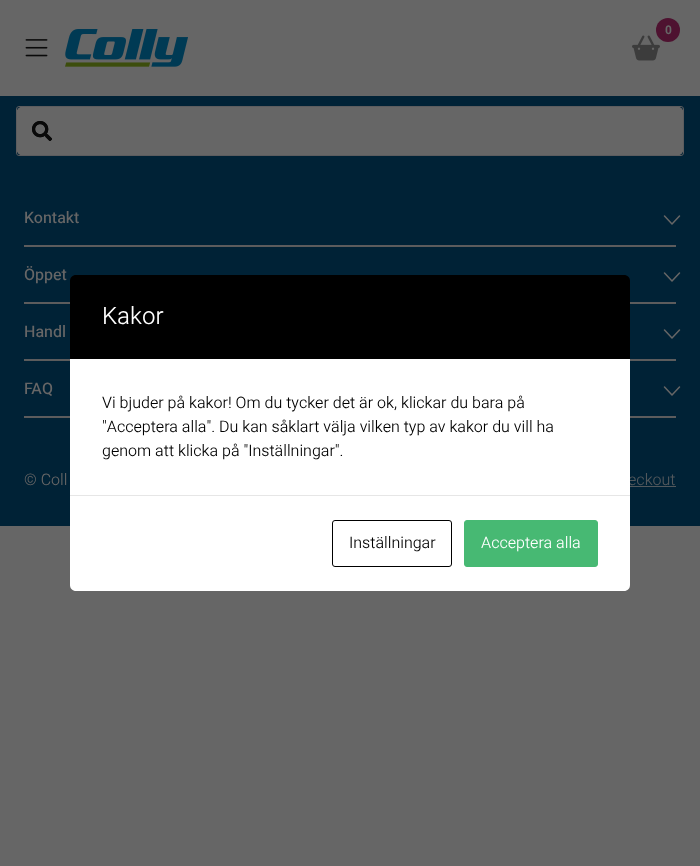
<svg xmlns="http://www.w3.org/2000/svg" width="700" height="866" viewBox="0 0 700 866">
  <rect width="100%" height="100%" fill="rgb(102,102,102)"/>
  <image x="25" y="39" width="23" height="18" href="pic1.png"/>
  <image x="65" y="29" width="123" height="38" href="pic2.png"/>
  <image x="632" y="35" width="28" height="26" href="pic3.png"/>
  <circle cx="668" cy="30" r="12" fill="rgb(78,18,48)"/>
  <text x="665" y="34" font-family="Heebo" font-size="12" font-weight="bold" fill="rgb(102,102,102)">0</text>
  <rect x="0" y="96" width="700" height="430" fill="rgb(0,34,54)"/>
  <rect x="16" y="106" width="668" height="50" rx="8" fill="rgb(102,102,102)"/>
  <image x="32" y="121" width="20" height="20" href="pic5.png"/>
  <rect x="16.5" y="106.5" width="667" height="49" rx="2.5" fill="none" stroke="rgb(92,92,94)"/>
  <image x="32" y="121" width="20" height="20" href="pic4.png"/>
  <rect x="24" y="246" width="652" height="1" fill="rgb(92,92,92)"/>
  <rect x="24" y="245" width="652" height="1" fill="rgb(92,92,94)"/>
  <text x="24" y="223" font-family="Heebo" font-size="16" font-weight="500" fill="rgb(102,102,102)">Kontakt</text>
  <path d="M679.5 216L672 224L664.5 216" fill="none" stroke="rgb(102,102,102)" stroke-width="1.5" stroke-linecap="round" stroke-linejoin="round"/>
  <rect x="24" y="303" width="652" height="1" fill="rgb(92,92,92)"/>
  <rect x="24" y="302" width="652" height="1" fill="rgb(92,92,94)"/>
  <text x="24" y="280" font-family="Heebo" font-size="16" font-weight="500" fill="rgb(102,102,102)">Öppet</text>
  <path d="M679.5 273L672 281L664.5 273" fill="none" stroke="rgb(102,102,102)" stroke-width="1.5" stroke-linecap="round" stroke-linejoin="round"/>
  <rect x="24" y="360" width="652" height="1" fill="rgb(92,92,92)"/>
  <rect x="24" y="359" width="652" height="1" fill="rgb(92,92,94)"/>
  <text x="24" y="337" font-family="Heebo" font-size="16" font-weight="500" fill="rgb(102,102,102)">Handl</text>
  <path d="M679.5 330L672 338L664.5 330" fill="none" stroke="rgb(102,102,102)" stroke-width="1.5" stroke-linecap="round" stroke-linejoin="round"/>
  <rect x="24" y="417" width="652" height="1" fill="rgb(92,92,92)"/>
  <rect x="24" y="416" width="652" height="1" fill="rgb(92,92,94)"/>
  <text x="24" y="394" font-family="Heebo" font-size="16" font-weight="500" fill="rgb(102,102,102)">FAQ</text>
  <path d="M679.5 387L672 395L664.5 387" fill="none" stroke="rgb(102,102,102)" stroke-width="1.5" stroke-linecap="round" stroke-linejoin="round"/>
  <text x="24" y="485" font-family="Heebo" font-size="16" font-weight="300" fill="rgb(102,102,102)">© Coll</text>
  <text x="628" y="485" font-family="Heebo" font-size="16" font-weight="300" fill="rgb(82,88,92)">eckout</text>
  <rect x="630" y="486" width="46" height="1" fill="rgb(82,88,92)"/>
  <path d="M76 275H624C627.5 275 630 277.5 630 281V359H70V281C70 277.5 72.5 275 76 275Z" fill="rgb(0,0,0)"/>
  <text x="102" y="324" font-family="Heebo" font-size="24" font-weight="300" fill="rgb(255,255,255)">Kakor</text>
  <rect x="70" y="359" width="560" height="136" fill="rgb(255,255,255)"/>
  <g font-family="Heebo" font-size="16" font-weight="300" fill="rgb(0,0,0)">
    <text>
      <tspan x="102" y="408">Vi bjuder på kakor! Om du tycker det är ok, klickar du bara på</tspan>
      <tspan x="102" y="432">"Acceptera alla". Du kan såklart välja vilken typ av kakor du vill ha</tspan>
      <tspan x="102" y="456">genom att klicka på "Inställningar".</tspan>
    </text>
  </g>
  <path d="M70 496H630V585C630 588.5 627.5 591 624 591H76C72.5 591 70 588.5 70 585Z" fill="rgb(255,255,255)"/>
  <rect x="70" y="495" width="560" height="1" fill="rgb(230,230,230)"/>
  <rect x="332.5" y="520.5" width="119" height="46" rx="2.5" fill="none" stroke="rgb(0,0,0)"/>
  <text x="349" y="548" font-family="Heebo" font-size="16" font-weight="300" fill="rgb(0,0,0)">Inställningar</text>
  <rect x="464.5" y="520.5" width="133" height="46" rx="2.5" fill="rgb(71,185,115)" stroke="rgb(71,185,115)"/>
  <text x="481" y="548" font-family="Heebo" font-size="16" font-weight="300" fill="rgb(255,255,255)">Acceptera alla</text>
</svg>
